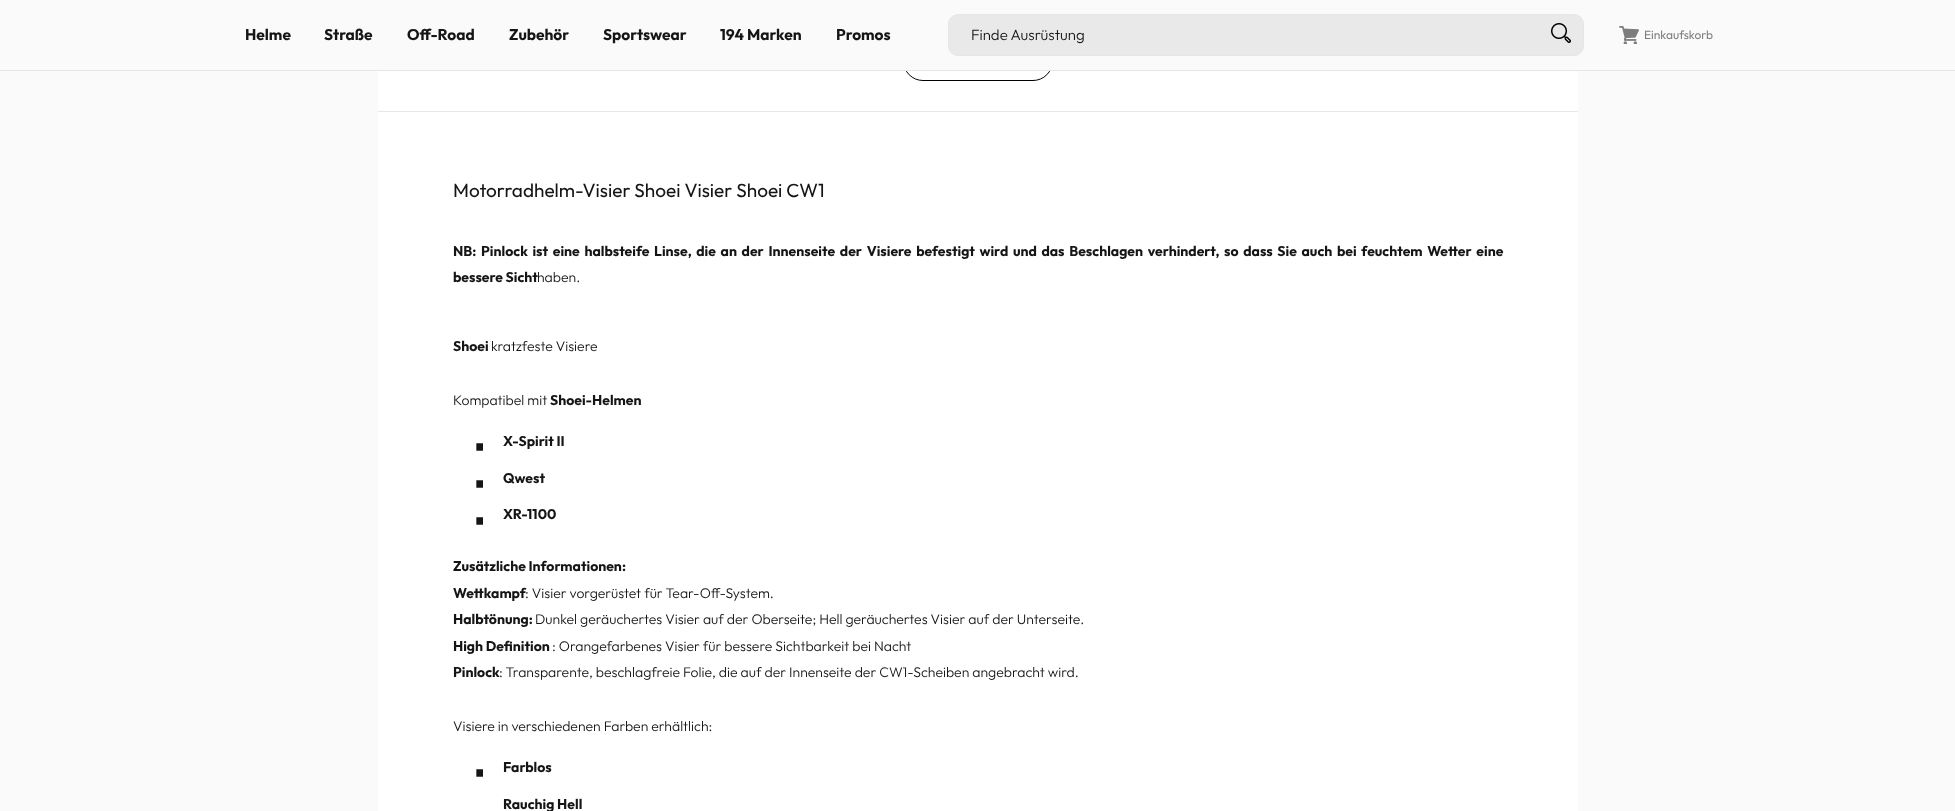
<svg xmlns="http://www.w3.org/2000/svg" width="1955" height="811" viewBox="0 0 1955 811">
  <rect width="100%" height="100%" fill="rgb(250,250,250)"/>
  <rect x="378" y="71" width="1200" height="740" fill="rgb(255,255,255)"/>
  <rect x="903.5" y="41.5" width="149" height="39" rx="19.5" fill="none" stroke="rgb(0,0,0)"/>
  <rect x="903" y="41" width="150" height="29" fill="rgb(250,250,250)"/>
  <rect x="0" y="70" width="1955" height="1" fill="rgb(230,230,230)"/>
  <g font-family="Outfit" font-size="15.5" font-weight="bold" fill="rgb(21,21,21)">
    <text x="245" y="40">Helme</text>
    <text x="324" y="40">Straße</text>
    <text x="407" y="40">Off-Road</text>
    <text x="509" y="40">Zubehör</text>
    <text x="603" y="40">Sportswear</text>
    <text x="720" y="40">194 Marken</text>
    <text x="836" y="40">Promos</text>
  </g>
  <rect x="948.5" y="14.5" width="635" height="41" rx="9.5" fill="rgb(233,233,233)" stroke="rgb(230,230,230)"/>
  <text x="971" y="40" font-family="Outfit" font-size="15" font-weight="300" fill="rgb(21,21,21)">Finde Ausrüstung</text>
  <image x="1551" y="23" width="20" height="20" href="pic1.png"/>
  <image x="1619" y="26" width="20" height="18" href="pic2.png"/>
  <text x="1644" y="39" font-family="Outfit" font-size="12" fill="rgb(126,126,126)">Einkaufskorb</text>
  <rect x="378" y="111" width="1200" height="1" fill="rgb(230,230,230)"/>
  <text x="453" y="197" font-family="Outfit" font-size="19" fill="rgb(21,21,21)">Motorradhelm-Visier Shoei Visier Shoei CW1</text>
  <g font-family="Outfit" font-size="14" font-weight="bold" fill="rgb(21,21,21)">
    <text>
      <tspan x="453" y="256" word-spacing="2">NB: Pinlock ist eine halbsteife Linse, die an der Innenseite der Visiere befestigt wird und das Beschlagen verhindert, so dass Sie auch bei feuchtem Wetter eine</tspan>
      <tspan x="453" y="282">bessere Sicht</tspan>
    </text>
  </g>
  <text x="537" y="282" font-family="Outfit" font-size="14" font-weight="300" fill="rgb(21,21,21)">haben.</text>
  <text x="453" y="351" font-family="Outfit" font-size="14" font-weight="bold" fill="rgb(21,21,21)">Shoei</text>
  <g font-family="Outfit" font-size="14" font-weight="300" fill="rgb(21,21,21)">
    <text x="491" y="351">kratzfeste Visiere</text>
    <text x="453" y="405">Kompatibel mit</text>
  </g>
  <text x="550" y="405" font-family="Outfit" font-size="14" font-weight="bold" fill="rgb(21,21,21)">Shoei-Helmen</text>
  <text x="468" y="466" font-family="Liberation Sans" font-size="70" fill="rgb(21,21,21)">·</text>
  <text x="503" y="446" font-family="Outfit" font-size="14" font-weight="bold" fill="rgb(21,21,21)">X-Spirit II</text>
  <text x="468" y="503" font-family="Liberation Sans" font-size="70" fill="rgb(21,21,21)">·</text>
  <g font-family="Outfit" font-size="14" font-weight="bold" fill="rgb(21,21,21)">
    <text x="503" y="483">Qwest</text>
    <text x="503" y="519">XR-1100</text>
  </g>
  <text x="468" y="540" font-family="Liberation Sans" font-size="70" fill="rgb(21,21,21)">·</text>
  <g font-family="Outfit" font-size="14" font-weight="bold" fill="rgb(21,21,21)">
    <text>
      <tspan x="453" y="571">Zusätzliche Informationen:</tspan>
      <tspan x="453" y="598">Wettkampf</tspan>
    </text>
  </g>
  <text x="525" y="598" font-family="Outfit" font-size="14" font-weight="300" fill="rgb(21,21,21)">: Visier vorgerüstet für Tear-Off-System.</text>
  <text x="453" y="624" font-family="Outfit" font-size="14" font-weight="bold" fill="rgb(21,21,21)">Halbtönung:</text>
  <text x="535" y="624" font-family="Outfit" font-size="14" font-weight="300" fill="rgb(21,21,21)">Dunkel geräuchertes Visier auf der Oberseite; Hell geräuchertes Visier auf der Unterseite.</text>
  <text x="453" y="651" font-family="Outfit" font-size="14" font-weight="bold" fill="rgb(21,21,21)">High Definition</text>
  <text x="552" y="651" font-family="Outfit" font-size="14" font-weight="300" fill="rgb(21,21,21)">: Orangefarbenes Visier für bessere Sichtbarkeit bei Nacht</text>
  <text x="453" y="677" font-family="Outfit" font-size="14" font-weight="bold" fill="rgb(21,21,21)">Pinlock</text>
  <g font-family="Outfit" font-size="14" font-weight="300" fill="rgb(21,21,21)">
    <text x="499" y="677">: Transparente, beschlagfreie Folie, die auf der Innenseite der CW1-Scheiben angebracht wird.</text>
    <text x="453" y="731">Visiere in verschiedenen Farben erhältlich:</text>
  </g>
  <text x="468" y="792" font-family="Liberation Sans" font-size="70" fill="rgb(21,21,21)">·</text>
  <g font-family="Outfit" font-size="14" font-weight="bold" fill="rgb(21,21,21)">
    <text x="503" y="772">Farblos</text>
    <text x="503" y="809">Rauchig Hell</text>
  </g>
</svg>
